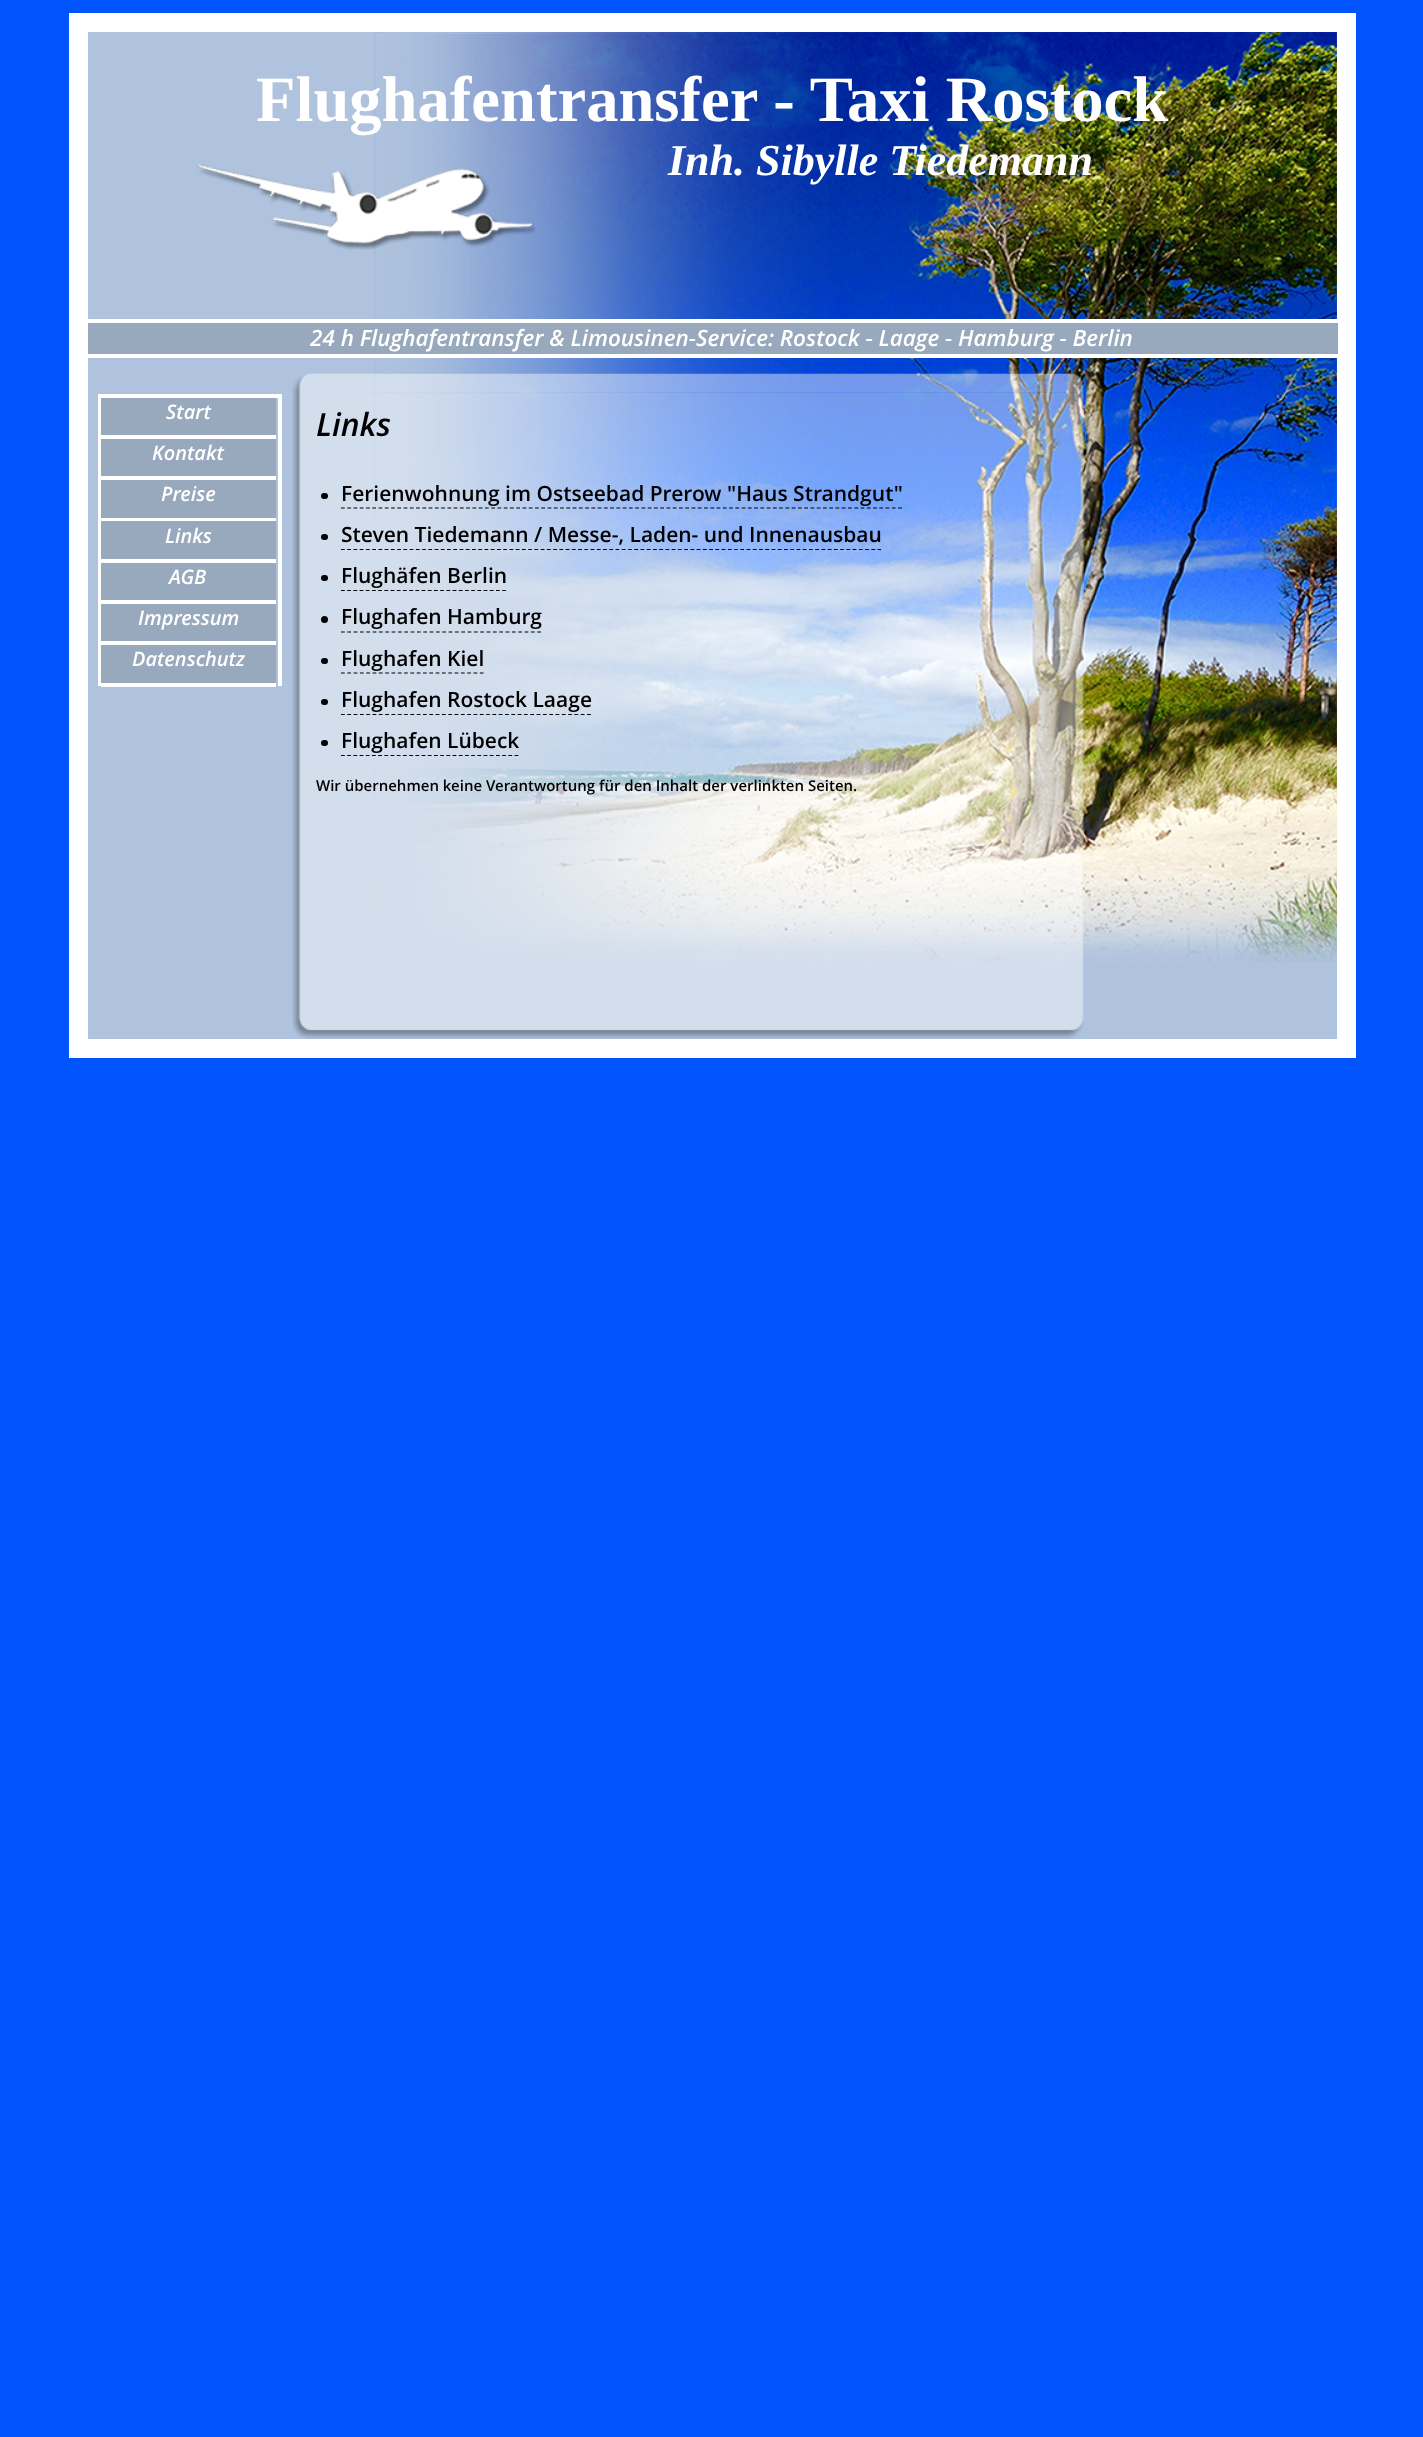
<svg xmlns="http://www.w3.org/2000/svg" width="1423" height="2437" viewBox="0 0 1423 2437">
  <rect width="100%" height="100%" fill="rgb(0,84,254)"/>
  <rect x="88" y="32" width="1249" height="1007" fill="rgb(175,195,222)"/>
  <image x="374" y="32" width="963" height="930" href="pic1.png"/>
  <rect x="78.5" y="22.5" width="1268" height="1026" fill="none" stroke="rgb(255,255,255)" stroke-width="19"/>
  <rect x="88" y="319" width="1250" height="4" fill="rgb(255,255,255)"/>
  <text x="256" y="121" font-family="Liberation Serif" font-size="64.6" font-weight="bold" fill="rgb(255,255,255)">Flughafentransfer - Taxi Rostock</text>
  <image x="197" y="164" width="338" height="86" href="pic2.png"/>
  <text x="668" y="175" font-family="Liberation Serif" font-size="44" font-weight="bold" font-style="italic" fill="rgb(255,255,255)">Inh. Sibylle Tiedemann</text>
  <rect x="88" y="323" width="1250" height="31" fill="rgb(152,168,189)"/>
  <rect x="88" y="354" width="1250" height="4" fill="rgb(255,255,255)"/>
  <text x="310" y="346" font-family="Open Sans" font-size="22.5" font-weight="600" font-style="italic" fill="rgb(255,255,255)">24 h Flughafentransfer &amp; Limousinen-Service: Rostock - Laage - Hamburg - Berlin</text>
  <rect x="98" y="394" width="183" height="4" fill="rgb(255,255,255)"/>
  <rect x="278" y="394" width="4" height="292" fill="rgb(255,255,255)"/>
  <rect x="98" y="394" width="4" height="292" fill="rgb(255,255,255)"/>
  <rect x="101" y="398" width="175" height="37" fill="rgb(152,168,189)"/>
  <rect x="101" y="435" width="175" height="4" fill="rgb(255,255,255)"/>
  <text x="166" y="419" font-family="Open Sans" font-size="20" font-weight="600" font-style="italic" fill="rgb(255,255,255)">Start</text>
  <rect x="101" y="439" width="175" height="37" fill="rgb(152,168,189)"/>
  <rect x="101" y="476" width="175" height="4" fill="rgb(255,255,255)"/>
  <text x="152" y="460" font-family="Open Sans" font-size="20" font-weight="600" font-style="italic" fill="rgb(255,255,255)">Kontakt</text>
  <rect x="101" y="480" width="175" height="38" fill="rgb(152,168,189)"/>
  <rect x="101" y="518" width="175" height="3" fill="rgb(255,255,255)"/>
  <text x="161" y="501" font-family="Open Sans" font-size="20" font-weight="600" font-style="italic" fill="rgb(255,255,255)">Preise</text>
  <rect x="101" y="521" width="175" height="38" fill="rgb(152,168,189)"/>
  <rect x="101" y="559" width="175" height="4" fill="rgb(255,255,255)"/>
  <text x="165" y="543" font-family="Open Sans" font-size="20" font-weight="600" font-style="italic" fill="rgb(255,255,255)">Links</text>
  <rect x="101" y="563" width="175" height="37" fill="rgb(152,168,189)"/>
  <rect x="101" y="600" width="175" height="4" fill="rgb(255,255,255)"/>
  <text x="169" y="584" font-family="Open Sans" font-size="20" font-weight="600" font-style="italic" fill="rgb(255,255,255)">AGB</text>
  <rect x="101" y="604" width="175" height="37" fill="rgb(152,168,189)"/>
  <rect x="101" y="641" width="175" height="4" fill="rgb(255,255,255)"/>
  <text x="138" y="625" font-family="Open Sans" font-size="20" font-weight="600" font-style="italic" fill="rgb(255,255,255)">Impressum</text>
  <rect x="101" y="645" width="175" height="38" fill="rgb(152,168,189)"/>
  <rect x="101" y="683" width="175" height="4" fill="rgb(255,255,255)"/>
  <text x="132" y="666" font-family="Open Sans" font-size="20" font-weight="600" font-style="italic" fill="rgb(255,255,255)">Datenschutz</text>
  <image x="292" y="373" width="792" height="20" href="pic3.png"/>
  <image x="292" y="1017" width="792" height="22" href="pic5.png"/>
  <image x="292" y="392" width="792" height="626" href="pic4.png"/>
  <text x="316" y="436" font-family="Open Sans" font-size="32" font-weight="600" font-style="italic" fill="rgb(0,0,0)">Links</text>
  <rect x="321" y="493" width="7" height="6" rx="3" fill="rgb(0,0,0)"/>
  <text x="341" y="501" font-family="Open Sans" font-size="21" font-weight="600" fill="rgb(0,0,0)">Ferienwohnung im Ostseebad Prerow "Haus Strandgut"</text>
  <path d="M341 508H902.5" fill="none" stroke="rgb(0,0,0)" stroke-width="1.2" stroke-dasharray="3.75 2.51"/>
  <rect x="321" y="534" width="7" height="6" rx="3" fill="rgb(0,0,0)"/>
  <text x="341" y="542" font-family="Open Sans" font-size="21" font-weight="600" fill="rgb(0,0,0)">Steven Tiedemann / Messe-, Laden- und Innenausbau</text>
  <path d="M341 549.5H881" fill="none" stroke="rgb(0,0,0)" stroke-width="1.2" stroke-dasharray="3.75 2.49"/>
  <rect x="321" y="575" width="7" height="6" rx="3" fill="rgb(0,0,0)"/>
  <text x="341" y="583" font-family="Open Sans" font-size="21" font-weight="600" fill="rgb(0,0,0)">Flughäfen Berlin</text>
  <path d="M341 590.5H506" fill="none" stroke="rgb(0,0,0)" stroke-width="1.2" stroke-dasharray="3.75 2.45"/>
  <circle cx="324.5" cy="619.5" r="3.5" fill="rgb(0,0,0)"/>
  <text x="341" y="624" font-family="Open Sans" font-size="21" font-weight="600" fill="rgb(0,0,0)">Flughafen Hamburg</text>
  <path d="M341 632H541" fill="none" stroke="rgb(0,0,0)" stroke-width="1.2" stroke-dasharray="3.75 2.58"/>
  <rect x="321" y="658" width="7" height="6" rx="3" fill="rgb(0,0,0)"/>
  <text x="341" y="666" font-family="Open Sans" font-size="21" font-weight="600" fill="rgb(0,0,0)">Flughafen Kiel</text>
  <path d="M341 673H484" fill="none" stroke="rgb(0,0,0)" stroke-width="1.2" stroke-dasharray="3.75 2.56"/>
  <rect x="321" y="699" width="7" height="6" rx="3" fill="rgb(0,0,0)"/>
  <text x="341" y="707" font-family="Open Sans" font-size="21" font-weight="600" fill="rgb(0,0,0)">Flughafen Rostock Laage</text>
  <path d="M341 714.5H591" fill="none" stroke="rgb(0,0,0)" stroke-width="1.2" stroke-dasharray="3.75 2.56"/>
  <rect x="321" y="740" width="7" height="6" rx="3" fill="rgb(0,0,0)"/>
  <text x="341" y="748" font-family="Open Sans" font-size="21" font-weight="600" fill="rgb(0,0,0)">Flughafen Lübeck</text>
  <path d="M341 755.5H519" fill="none" stroke="rgb(0,0,0)" stroke-width="1.2" stroke-dasharray="3.75 2.45"/>
  <text x="316" y="791" font-family="Open Sans" font-size="15" font-weight="600" fill="rgb(0,0,0)">Wir übernehmen keine Verantwortung für den Inhalt der verlinkten Seiten.</text>
</svg>
